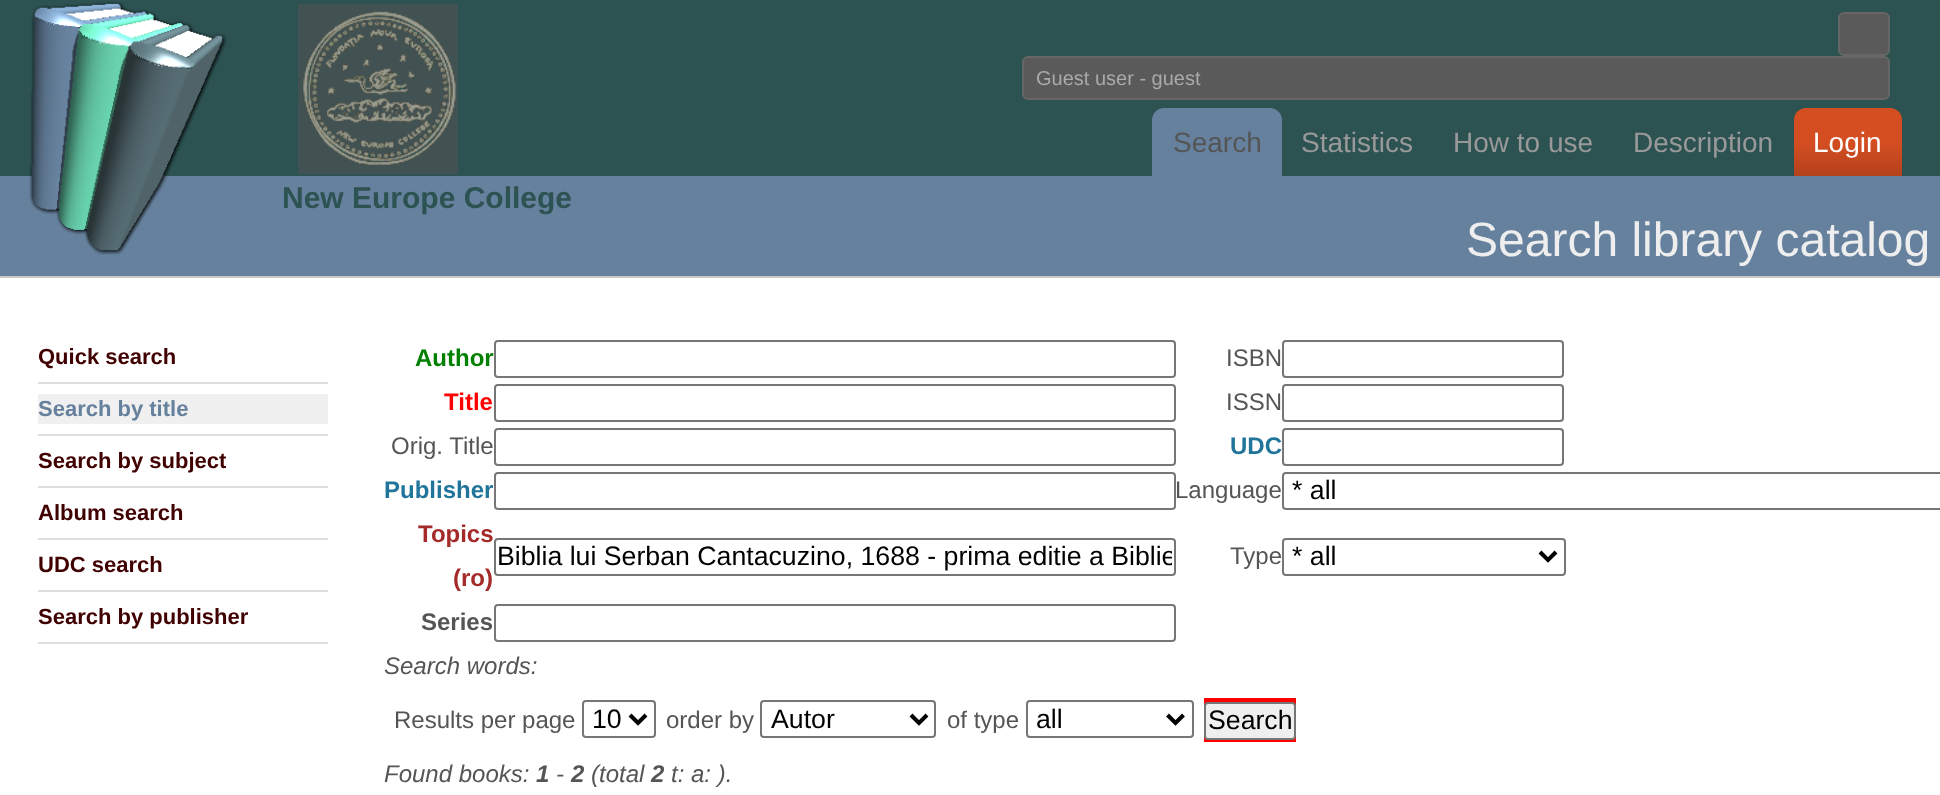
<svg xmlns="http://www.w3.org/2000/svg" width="1940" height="795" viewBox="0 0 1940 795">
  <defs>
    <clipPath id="clip1"><rect x="498" y="542" width="674" height="30"/></clipPath>
  </defs>
  <rect width="100%" height="100%" fill="rgb(255,255,255)"/>
  <rect x="0" y="0" width="1940" height="176" fill="rgb(45,82,82)"/>
  <rect x="0" y="176" width="1940" height="100" fill="rgb(102,129,157)"/>
  <image x="29" y="1" width="198" height="254" href="pic1.png"/>
  <image x="298" y="4" width="160" height="170" href="pic2.png"/>
  <rect x="1839" y="13" width="50" height="42" rx="5" fill="rgb(90,90,90)" stroke="rgb(102,102,102)" stroke-width="2"/>
  <rect x="1023" y="57" width="866" height="42" rx="5" fill="rgb(90,90,90)" stroke="rgb(102,102,102)" stroke-width="2"/>
  <text x="1036" y="85" font-family="Liberation Sans" font-size="20" fill="rgb(170,170,170)">Guest user - guest</text>
  <path d="M1164 108H1270C1276.5 108 1282 113.5 1282 120V176H1152V120C1152 113.5 1157.5 108 1164 108Z" fill="rgb(102,129,157)"/>
  <text x="1173" y="152" font-family="Liberation Sans" font-size="28" fill="rgb(85,85,85)">Search</text>
  <g font-family="Liberation Sans" font-size="28" fill="rgb(153,153,153)">
    <text x="1301" y="152">Statistics</text>
    <text x="1453" y="152">How to use</text>
    <text x="1633" y="152">Description</text>
  </g>
  <image x="1794" y="108" width="108" height="68" href="pic3.png"/>
  <text x="1813" y="152" font-family="Liberation Sans" font-size="28" fill="rgb(255,255,255)">Login</text>
  <text x="282" y="208" font-family="Liberation Sans" font-size="30" font-weight="bold" fill="rgb(45,82,82)">New Europe College</text>
  <rect x="0" y="276" width="1940" height="2" fill="rgb(201,201,201)"/>
  <text x="1466" y="256" font-family="Liberation Sans" font-size="48" fill="rgb(238,238,238)">Search library catalog</text>
  <rect x="38" y="382" width="290" height="2" fill="rgb(222,222,222)"/>
  <text x="38" y="364" font-family="Liberation Sans" font-size="22" font-weight="bold" fill="rgb(64,0,0)">Quick search</text>
  <rect x="38" y="434" width="290" height="2" fill="rgb(222,222,222)"/>
  <rect x="38" y="394" width="290" height="30" fill="rgb(240,240,240)"/>
  <text x="38" y="416" font-family="Liberation Sans" font-size="22" font-weight="bold" fill="rgb(102,129,157)">Search by title</text>
  <rect x="38" y="486" width="290" height="2" fill="rgb(222,222,222)"/>
  <text x="38" y="468" font-family="Liberation Sans" font-size="22" font-weight="bold" fill="rgb(64,0,0)">Search by subject</text>
  <rect x="38" y="538" width="290" height="2" fill="rgb(222,222,222)"/>
  <text x="38" y="520" font-family="Liberation Sans" font-size="22" font-weight="bold" fill="rgb(64,0,0)">Album search</text>
  <rect x="38" y="590" width="290" height="2" fill="rgb(222,222,222)"/>
  <text x="38" y="572" font-family="Liberation Sans" font-size="22" font-weight="bold" fill="rgb(64,0,0)">UDC search</text>
  <rect x="38" y="642" width="290" height="2" fill="rgb(222,222,222)"/>
  <text x="38" y="624" font-family="Liberation Sans" font-size="22" font-weight="bold" fill="rgb(64,0,0)">Search by publisher</text>
  <text x="415" y="366" font-family="Liberation Sans" font-size="24" font-weight="bold" fill="rgb(0,128,0)">Author</text>
  <rect x="495" y="341" width="680" height="36" rx="3" fill="none" stroke="rgb(118,118,118)" stroke-width="2"/>
  <text x="1226" y="366" font-family="Liberation Sans" font-size="24" fill="rgb(85,85,85)">ISBN</text>
  <rect x="1283" y="341" width="280" height="36" rx="3" fill="none" stroke="rgb(118,118,118)" stroke-width="2"/>
  <text x="444" y="410" font-family="Liberation Sans" font-size="24" font-weight="bold" fill="rgb(255,0,0)">Title</text>
  <rect x="495" y="385" width="680" height="36" rx="3" fill="none" stroke="rgb(118,118,118)" stroke-width="2"/>
  <text x="1226" y="410" font-family="Liberation Sans" font-size="24" fill="rgb(85,85,85)">ISSN</text>
  <rect x="1283" y="385" width="280" height="36" rx="3" fill="none" stroke="rgb(118,118,118)" stroke-width="2"/>
  <text x="391" y="454" font-family="Liberation Sans" font-size="24" fill="rgb(85,85,85)">Orig. Title</text>
  <rect x="495" y="429" width="680" height="36" rx="3" fill="none" stroke="rgb(118,118,118)" stroke-width="2"/>
  <text x="1230" y="454" font-family="Liberation Sans" font-size="24" font-weight="bold" fill="rgb(33,117,155)">UDC</text>
  <rect x="1283" y="429" width="280" height="36" rx="3" fill="none" stroke="rgb(118,118,118)" stroke-width="2"/>
  <text x="384" y="498" font-family="Liberation Sans" font-size="24" font-weight="bold" fill="rgb(33,117,155)">Publisher</text>
  <rect x="495" y="473" width="680" height="36" rx="3" fill="none" stroke="rgb(118,118,118)" stroke-width="2"/>
  <text x="1175" y="498" font-family="Liberation Sans" font-size="24" fill="rgb(85,85,85)">Language</text>
  <rect x="1283" y="473" width="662" height="36" rx="3" fill="none" stroke="rgb(118,118,118)" stroke-width="2"/>
  <text x="1292" y="499" font-family="Liberation Sans" font-size="26.7" fill="rgb(0,0,0)">* all</text>
  <g font-family="Liberation Sans" font-size="24" font-weight="bold" fill="rgb(165,42,42)">
    <text x="418" y="542">Topics</text>
    <text x="453" y="586">(ro)</text>
  </g>
  <rect x="495" y="539" width="680" height="36" rx="3" fill="none" stroke="rgb(118,118,118)" stroke-width="2"/>
  <g clip-path="url(#clip1)">
    <text x="497" y="565" font-family="Liberation Sans" font-size="26.7" fill="rgb(0,0,0)">Biblia lui Serban Cantacuzino, 1688 - prima editie a Biblie</text>
  </g>
  <text x="1230" y="564" font-family="Liberation Sans" font-size="24" fill="rgb(85,85,85)">Type</text>
  <rect x="1283" y="539" width="282" height="36" rx="3" fill="none" stroke="rgb(118,118,118)" stroke-width="2"/>
  <path d="M1540 552L1548 560L1556 552" fill="none" stroke="rgb(0,0,0)" stroke-width="4"/>
  <text x="1292" y="565" font-family="Liberation Sans" font-size="26.7" fill="rgb(0,0,0)">* all</text>
  <text x="421" y="630" font-family="Liberation Sans" font-size="24" font-weight="bold" fill="rgb(85,85,85)">Series</text>
  <rect x="495" y="605" width="680" height="36" rx="3" fill="none" stroke="rgb(118,118,118)" stroke-width="2"/>
  <text x="384" y="674" font-family="Liberation Sans" font-size="24" font-style="italic" fill="rgb(85,85,85)">Search words:</text>
  <text x="394" y="728" font-family="Liberation Sans" font-size="24" fill="rgb(85,85,85)">Results per page</text>
  <rect x="583" y="701" width="72" height="36" rx="3" fill="none" stroke="rgb(118,118,118)" stroke-width="2"/>
  <path d="M630 715L638 723L646 715" fill="none" stroke="rgb(0,0,0)" stroke-width="4"/>
  <text x="592" y="728" font-family="Liberation Sans" font-size="26.7" fill="rgb(0,0,0)">10</text>
  <text x="666" y="728" font-family="Liberation Sans" font-size="24" fill="rgb(85,85,85)">order by</text>
  <rect x="761" y="701" width="174" height="36" rx="3" fill="none" stroke="rgb(118,118,118)" stroke-width="2"/>
  <path d="M911 715L919 723L927 715" fill="none" stroke="rgb(0,0,0)" stroke-width="4"/>
  <text x="771" y="728" font-family="Liberation Sans" font-size="26.7" fill="rgb(0,0,0)">Autor</text>
  <text x="947" y="728" font-family="Liberation Sans" font-size="24" fill="rgb(85,85,85)">of type</text>
  <rect x="1027" y="701" width="166" height="36" rx="3" fill="none" stroke="rgb(118,118,118)" stroke-width="2"/>
  <path d="M1167.5 715L1175.5 723L1183.5 715" fill="none" stroke="rgb(0,0,0)" stroke-width="4"/>
  <text x="1036" y="728" font-family="Liberation Sans" font-size="26.7" fill="rgb(0,0,0)">all</text>
  <rect x="1204" y="698" width="92" height="44" fill="rgb(255,0,0)"/>
  <rect x="1205" y="703" width="90" height="36" rx="3" fill="rgb(239,239,239)" stroke="rgb(118,118,118)" stroke-width="2"/>
  <text x="1208" y="729" font-family="Liberation Sans" font-size="26.7" fill="rgb(0,0,0)">Search</text>
  <text x="384" y="782" font-family="Liberation Sans" font-size="24" font-style="italic" fill="rgb(85,85,85)">Found books:</text>
  <text x="536" y="782" font-family="Liberation Sans" font-size="24" font-weight="bold" font-style="italic" fill="rgb(85,85,85)">1</text>
  <text x="556" y="782" font-family="Liberation Sans" font-size="24" font-style="italic" fill="rgb(85,85,85)">-</text>
  <text x="571" y="782" font-family="Liberation Sans" font-size="24" font-weight="bold" font-style="italic" fill="rgb(85,85,85)">2</text>
  <text x="591" y="782" font-family="Liberation Sans" font-size="24" font-style="italic" fill="rgb(85,85,85)">(total</text>
  <text x="651" y="782" font-family="Liberation Sans" font-size="24" font-weight="bold" font-style="italic" fill="rgb(85,85,85)">2</text>
  <text x="671" y="782" font-family="Liberation Sans" font-size="24" font-style="italic" fill="rgb(85,85,85)">t: a: ).</text>
</svg>
